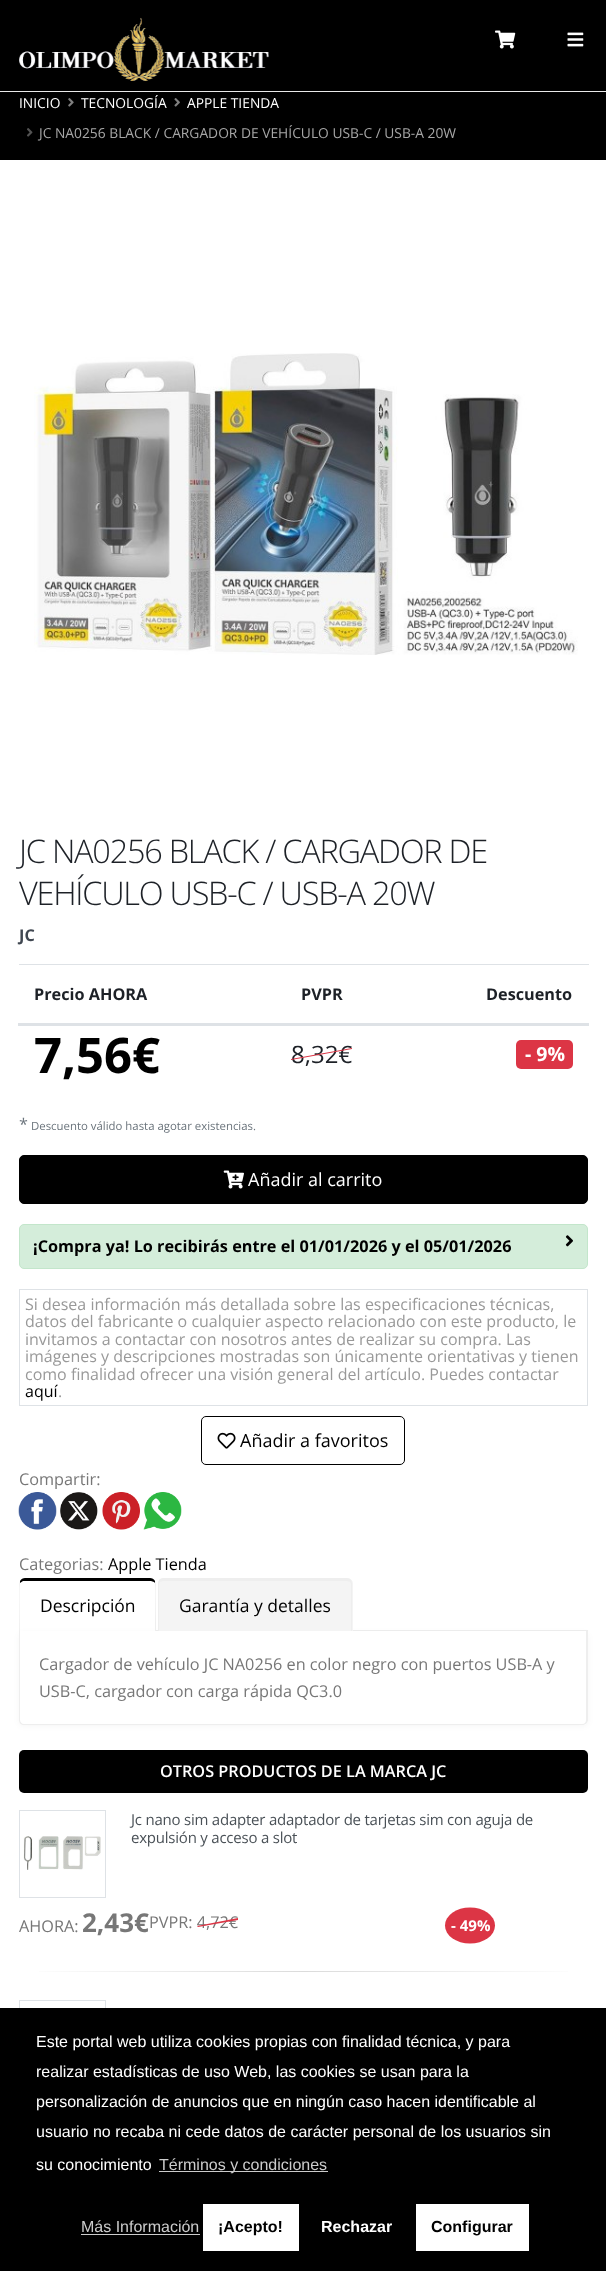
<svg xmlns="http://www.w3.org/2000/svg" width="606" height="2271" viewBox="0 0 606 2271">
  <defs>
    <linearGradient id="g1" gradientUnits="userSpaceOnUse" x1="588" y1="1972" x2="19" y2="1972"><stop offset="0" stop-color="rgb(255,255,255)"/><stop offset="0.5" stop-color="rgb(219,219,219)"/><stop offset="1" stop-color="rgb(255,255,255)"/></linearGradient>
  </defs>
  <rect width="100%" height="100%" fill="rgb(255,255,255)"/>
  <rect x="0" y="93" width="606" height="67" fill="rgb(0,0,0)"/>
  <image x="68" y="98" width="6" height="9" href="pic4.png"/>
  <image x="174" y="98" width="6" height="9" href="pic5.png"/>
  <rect x="0" y="-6" width="606" height="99" fill="rgba(0,0,0,0.1)" filter="blur(2px)"/>
  <rect x="0" y="0" width="606" height="93" fill="rgb(0,0,0)"/>
  <rect x="0" y="91" width="606" height="1" fill="rgb(233,233,233)"/>
  <image x="19" y="17" width="250" height="64" href="pic1.png"/>
  <image x="495" y="30" width="21" height="19" href="pic2.png"/>
  <image x="567" y="32" width="17" height="15" href="pic3.png"/>
  <g font-family="Open Sans" font-size="13.8" fill="rgb(255,255,255)">
    <text x="19" y="108">INICIO</text>
    <text x="81" y="108">TECNOLOGÍA</text>
    <text x="187" y="108">APPLE TIENDA</text>
  </g>
  <image x="27" y="128" width="6" height="9" href="pic6.png"/>
  <text x="39" y="138" font-family="Open Sans" font-size="13.8" fill="rgb(166,166,166)">JC NA0256 BLACK / CARGADOR DE VEHÍCULO USB-C / USB-A 20W</text>
  <image x="34" y="353" width="544" height="302" href="pic7.png"/>
  <g font-family="Open Sans" font-size="32.5" font-weight="300" letter-spacing="-1.25" fill="rgb(29,33,39)">
    <text>
      <tspan x="19" y="863">JC NA0256 BLACK / CARGADOR DE</tspan>
      <tspan x="19" y="905">VEHÍCULO USB-C / USB-A 20W</tspan>
    </text>
  </g>
  <text x="19" y="941" font-family="Open Sans" font-size="16.25" font-weight="bold" fill="rgb(64,71,81)">JC</text>
  <g font-family="Open Sans" font-size="16.25" font-weight="bold" fill="rgb(29,33,39)">
    <text x="34" y="1000">Precio AHORA</text>
    <text x="301" y="1000">PVPR</text>
  </g>
  <rect x="19" y="964" width="570" height="1" fill="rgb(222,226,230)"/>
  <rect x="18" y="1023" width="571" height="3" fill="rgb(222,226,230)"/>
  <text x="486" y="1000" font-family="Open Sans" font-size="16.25" font-weight="bold" fill="rgb(29,33,39)">Descuento</text>
  <text x="34" y="1073" font-family="Open Sans" font-size="49" font-weight="bold" fill="rgb(0,0,0)">7,56€</text>
  <text x="291" y="1063" font-family="Open Sans" font-size="24" fill="rgb(29,33,39)">8,32€</text>
  <path d="M291 1059L352 1048V1049L291 1060Z" fill="rgb(220,53,69)"/>
  <rect x="516" y="1040" width="57" height="29" rx="5" fill="rgb(220,53,69)"/>
  <text x="525" y="1061" font-family="Open Sans" font-size="19.5" font-weight="bold" fill="rgb(255,255,255)">- 9%</text>
  <text x="19" y="1130" font-family="Open Sans" font-size="16.25" fill="rgb(108,117,125)">*</text>
  <text x="31" y="1130" font-family="Open Sans" font-size="11.4" fill="rgb(108,117,125)">Descuento válido hasta agotar existencias.</text>
  <rect x="19.5" y="1155.5" width="568" height="48" rx="4.5" fill="rgb(0,0,0)" stroke="rgb(0,0,0)"/>
  <image x="223" y="1170" width="21" height="19" href="pic8.png"/>
  <text x="248" y="1186" font-family="Open Sans" font-size="18" fill="rgb(255,255,255)">Añadir al carrito</text>
  <rect x="19.5" y="1224.5" width="568" height="44" rx="4.5" fill="rgb(212,237,218)" stroke="rgb(195,230,203)"/>
  <text x="33" y="1252" font-family="Open Sans" font-size="16.25" font-weight="bold" fill="rgb(0,0,0)">¡Compra ya! Lo recibirás entre el 01/01/2026 y el 05/01/2026</text>
  <image x="565" y="1235" width="8" height="12" href="pic9.png"/>
  <rect x="19.5" y="1289.5" width="568" height="116" fill="none" stroke="rgb(222,226,230)"/>
  <g font-family="Open Sans" font-size="16" fill="rgb(153,153,153)">
    <text>
      <tspan x="25" y="1310">Si desea información más detallada sobre las especificaciones técnicas,</tspan>
      <tspan x="25" y="1327">datos del fabricante o cualquier aspecto relacionado con este producto, le</tspan>
      <tspan x="25" y="1345">invitamos a contactar con nosotros antes de realizar su compra. Las</tspan>
      <tspan x="25" y="1362">imágenes y descripciones mostradas son únicamente orientativas y tienen</tspan>
      <tspan x="25" y="1380">como finalidad ofrecer una visión general del artículo. Puedes contactar</tspan>
    </text>
  </g>
  <text x="25" y="1397" font-family="Open Sans" font-size="16" fill="rgb(0,0,0)">aquí</text>
  <text x="58" y="1397" font-family="Open Sans" font-size="16" fill="rgb(153,153,153)">.</text>
  <rect x="201.5" y="1416.5" width="203" height="48" rx="4.5" fill="none" stroke="rgb(0,0,0)"/>
  <image x="217" y="1432" width="19" height="17" href="pic10.png"/>
  <text x="240" y="1447" font-family="Open Sans" font-size="18" fill="rgb(0,0,0)">Añadir a favoritos</text>
  <text x="19" y="1485" font-family="Open Sans" font-size="16.25" fill="rgb(119,119,119)">Compartir:</text>
  <image x="18" y="1492" width="39" height="38" href="pic11.png"/>
  <image x="60" y="1492" width="38" height="38" href="pic12.png"/>
  <image x="102" y="1492" width="38" height="38" href="pic13.png"/>
  <image x="143" y="1492" width="39" height="38" href="pic14.png"/>
  <text x="19" y="1570" font-family="Open Sans" font-size="16.25" fill="rgb(119,119,119)">Categorias:</text>
  <text x="108" y="1570" font-family="Open Sans" font-size="16.25" fill="rgb(0,0,0)">Apple Tienda</text>
  <rect x="156" y="1630" width="432" height="1" fill="rgb(238,238,238)"/>
  <path d="M25 1578H150C152 1578 154 1579 155 1581V1583L154 1582L151 1581H23L20 1583V1581C21 1579 23 1578 25 1578Z" fill="rgb(0,0,0)"/>
  <rect x="19" y="1633" width="569" height="93" rx="5" fill="rgba(0,0,0,0.04)" filter="blur(3px)"/>
  <path d="M155 1583C156 1584 155 1626 155 1631H156V1584L155 1581Z" fill="rgb(238,238,238)"/>
  <path d="M20 1581V1583C19 1584 20 1626 20 1631H19V1584Z" fill="rgb(238,238,238)"/>
  <text x="40" y="1612" font-family="Open Sans" font-size="17.5" fill="rgb(0,0,0)">Descripción</text>
  <path d="M164 1578H347C350.5 1578 353 1580.5 353 1584V1631H158V1584C158 1580.5 160.5 1578 164 1578Z" fill="rgb(244,244,244)"/>
  <path d="M164 1578H346C350 1578 352 1580 352 1584V1631H158V1584C158 1580 160 1578 164 1578ZM164 1581H346C349 1581 351 1582 351 1584V1631H159V1584C159 1582 161 1581 164 1581Z" fill="rgb(238,238,238)" fill-rule="evenodd"/>
  <text x="179" y="1612" font-family="Open Sans" font-size="17.5" fill="rgb(0,0,0)">Garantía y detalles</text>
  <path d="M19 1631H588V1720C588 1723 586 1725 583 1725H24C21 1725 19 1723 19 1720Z" fill="rgb(255,255,255)"/>
  <path d="M19 1631H588V1720C588 1723 585 1725 582 1725H24C21 1725 19 1723 19 1720ZM20 1631H586V1720C586 1722 585 1724 582 1724H24C22 1724 20 1722 20 1720Z" fill="rgb(238,238,238)" fill-rule="evenodd"/>
  <g font-family="Open Sans" font-size="16.25" fill="rgb(119,119,119)">
    <text>
      <tspan x="39" y="1670">Cargador de vehículo JC NA0256 en color negro con puertos USB-A y</tspan>
      <tspan x="39" y="1697">USB-C, cargador con carga rápida QC3.0</tspan>
    </text>
  </g>
  <rect x="19" y="1750" width="569" height="43" rx="5" fill="rgb(0,0,0)"/>
  <text x="160" y="1777" font-family="Open Sans" font-size="16.25" font-weight="600" fill="rgb(255,255,255)">OTROS PRODUCTOS DE LA MARCA JC</text>
  <rect x="19.5" y="1810.5" width="86" height="87" fill="none" stroke="rgb(222,226,230)"/>
  <image x="23" y="1836" width="78" height="34" href="pic15.png"/>
  <g font-family="Open Sans" font-size="15" letter-spacing="-0.22" fill="rgb(74,81,87)">
    <text>
      <tspan x="131" y="1825">Jc nano sim adapter adaptador de tarjetas sim con aguja de</tspan>
      <tspan x="131" y="1843">expulsión y acceso a slot</tspan>
    </text>
  </g>
  <text x="19" y="1932" font-family="Open Sans" font-size="16.25" fill="rgb(119,119,119)">AHORA:</text>
  <text x="82" y="1932" font-family="Open Sans" font-size="26" font-weight="bold" fill="rgb(119,119,119)">2,43€</text>
  <text x="149" y="1928" font-family="Open Sans" font-size="16.25" fill="rgb(119,119,119)">PVPR: 4,72€</text>
  <path d="M197 1926L238 1918V1920L198 1927Z" fill="rgb(220,53,69)"/>
  <ellipse cx="470" cy="1925.5" rx="25" ry="18" fill="rgb(220,53,69)"/>
  <text x="451" y="1931" font-family="Open Sans" font-size="15" font-weight="bold" fill="rgb(255,255,255)">- 49%</text>
  <rect x="39" y="1971" width="529" height="1" fill="url(#g1)"/>
  <rect x="19.5" y="2000.5" width="86" height="87" fill="none" stroke="rgb(222,226,230)"/>
  <rect x="0" y="2008" width="606" height="263" fill="rgb(0,0,0)"/>
  <g font-family="Liberation Sans" font-size="16" fill="rgb(255,255,255)">
    <text>
      <tspan x="36" y="2047">Este portal web utiliza cookies propias con finalidad técnica, y para</tspan>
      <tspan x="36" y="2077">realizar estadísticas de uso Web, las cookies se usan para la</tspan>
      <tspan x="36" y="2107">personalización de anuncios que en ningún caso hacen identificable al</tspan>
      <tspan x="36" y="2137">usuario no recaba ni cede datos de carácter personal de los usuarios sin</tspan>
    </text>
    <text x="36" y="2170">su conocimiento</text>
  </g>
  <rect x="159" y="2171" width="169" height="1" fill="rgb(204,204,204)"/>
  <g font-family="Liberation Sans" font-size="16" fill="rgb(204,204,204)">
    <text x="159" y="2170">Términos y condiciones</text>
    <text x="81" y="2232">Más Información</text>
  </g>
  <rect x="81" y="2234" width="119" height="1" fill="rgb(204,204,204)"/>
  <rect x="203" y="2204" width="96" height="47" fill="rgb(255,255,255)"/>
  <text x="218" y="2232" font-family="Liberation Sans" font-size="16" font-weight="bold" fill="rgb(0,0,0)">¡Acepto!</text>
  <text x="321" y="2232" font-family="Liberation Sans" font-size="16" font-weight="bold" fill="rgb(255,255,255)">Rechazar</text>
  <rect x="416" y="2204" width="113" height="47" fill="rgb(255,255,255)"/>
  <text x="431" y="2232" font-family="Liberation Sans" font-size="16" font-weight="bold" fill="rgb(0,0,0)">Configurar</text>
</svg>
